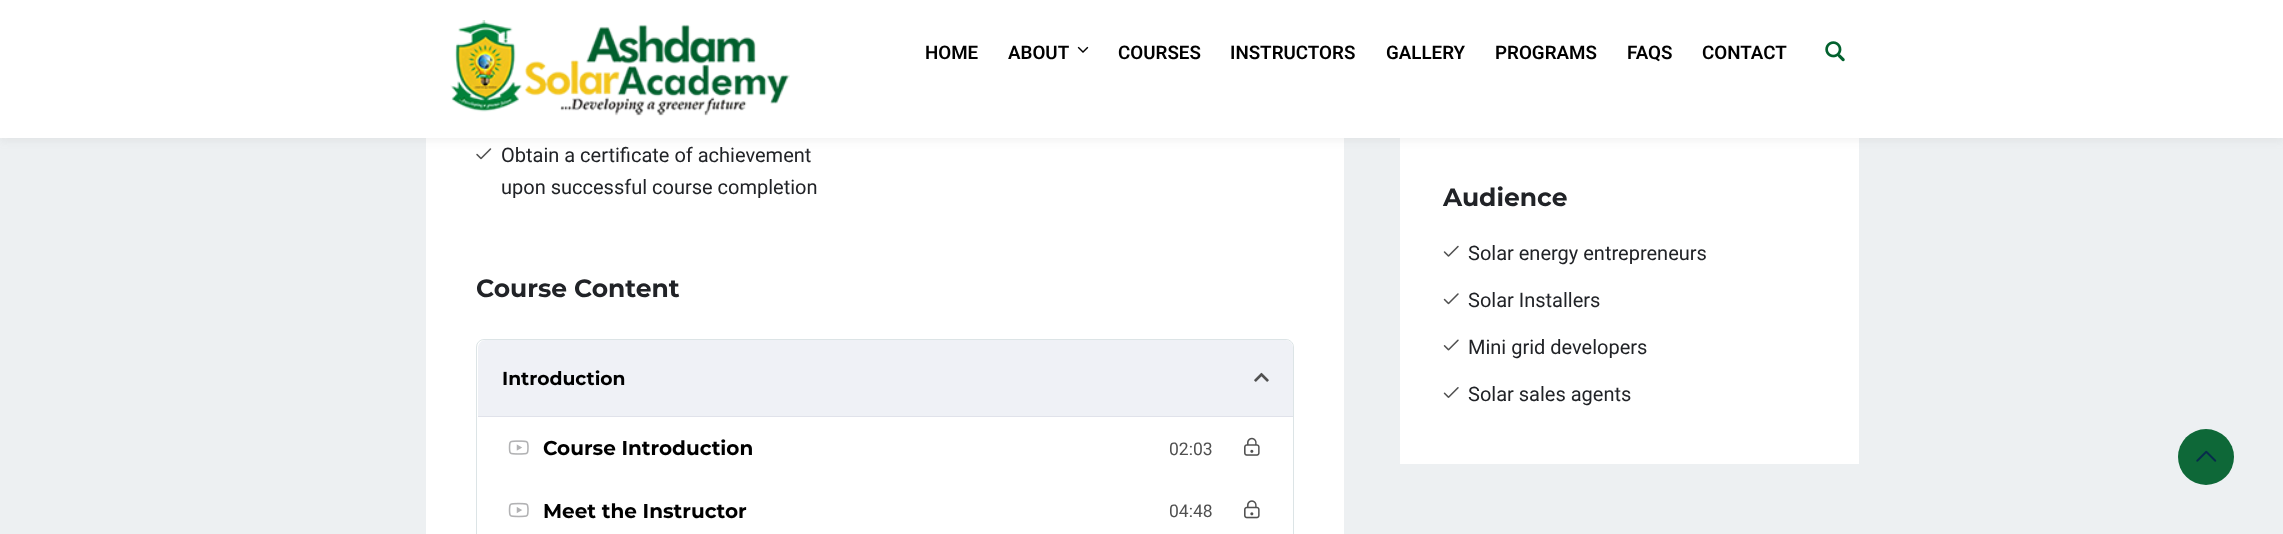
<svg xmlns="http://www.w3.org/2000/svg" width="2283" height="534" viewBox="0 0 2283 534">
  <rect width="100%" height="100%" fill="rgb(237,240,242)"/>
  <rect x="426" y="138" width="918" height="396" fill="rgb(255,255,255)"/>
  <image x="476" y="148" width="16" height="12" href="pic4.png"/>
  <rect x="1400" y="138" width="459" height="326" fill="rgb(255,255,255)"/>
  <rect x="0" y="4" width="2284" height="137" fill="rgba(128,128,128,0.1)" filter="blur(4px)"/>
  <rect x="0" y="0" width="2283" height="138" fill="rgb(255,255,255)"/>
  <image x="450" y="20" width="340" height="96" href="pic1.png"/>
  <g font-family="Roboto" font-size="18.75" font-weight="600" fill="rgb(0,0,0)">
    <text x="925" y="59">HOME</text>
    <text x="1008" y="59">ABOUT</text>
  </g>
  <image x="1077" y="46" width="12" height="7" href="pic2.png"/>
  <g font-family="Roboto" font-size="18.75" font-weight="600" fill="rgb(0,0,0)">
    <text x="1118" y="59">COURSES</text>
    <text x="1230" y="59">INSTRUCTORS</text>
    <text x="1386" y="59">GALLERY</text>
    <text x="1495" y="59">PROGRAMS</text>
    <text x="1627" y="59">FAQS</text>
    <text x="1702" y="59">CONTACT</text>
  </g>
  <image x="1825" y="41" width="20" height="21" href="pic3.png"/>
  <g font-family="Roboto" font-size="20" fill="rgb(33,35,39)">
    <text>
      <tspan x="501" y="162">Obtain a certificate of achievement</tspan>
      <tspan x="501" y="194">upon successful course completion</tspan>
    </text>
  </g>
  <text x="476" y="297" font-family="Montserrat" font-size="25" font-weight="bold" fill="rgb(33,35,39)">Course Content</text>
  <rect x="476.5" y="339.5" width="817" height="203" rx="7.5" fill="none" stroke="rgb(220,228,230)"/>
  <path d="M486 340H1285C1289.5 340 1293 343.5 1293 348V416H478V348C478 343.5 481.5 340 486 340Z" fill="rgb(239,241,246)"/>
  <text x="502" y="385" font-family="Montserrat" font-size="18.75" font-weight="bold" fill="rgb(0,0,0)">Introduction</text>
  <image x="1254" y="372" width="15" height="10" href="pic5.png"/>
  <rect x="478" y="416" width="815" height="1" fill="rgb(224,226,234)"/>
  <image x="508" y="440" width="21" height="15" href="pic6.png"/>
  <text x="543" y="455" font-family="Montserrat" font-size="20" font-weight="bold" fill="rgb(0,0,0)">Course Introduction</text>
  <text x="1169" y="455" font-family="Roboto" font-size="17.5" fill="rgb(80,80,80)">02:03</text>
  <image x="1244" y="437" width="16" height="19" href="pic7.png"/>
  <image x="508" y="502" width="21" height="16" href="pic8.png"/>
  <text x="543" y="518" font-family="Montserrat" font-size="20" font-weight="bold" fill="rgb(0,0,0)">Meet the Instructor</text>
  <text x="1169" y="517" font-family="Roboto" font-size="17.5" fill="rgb(80,80,80)">04:48</text>
  <image x="1244" y="500" width="16" height="19" href="pic9.png"/>
  <text x="1443" y="206" font-family="Montserrat" font-size="25" font-weight="bold" fill="rgb(33,35,39)">Audience</text>
  <image x="1443" y="245" width="16" height="12" href="pic10.png"/>
  <text x="1468" y="260" font-family="Roboto" font-size="20" fill="rgb(33,35,39)">Solar energy entrepreneurs</text>
  <image x="1443" y="293" width="16" height="12" href="pic11.png"/>
  <text x="1468" y="307" font-family="Roboto" font-size="20" fill="rgb(33,35,39)">Solar Installers</text>
  <image x="1443" y="339" width="16" height="12" href="pic12.png"/>
  <text x="1468" y="354" font-family="Roboto" font-size="20" fill="rgb(33,35,39)">Mini grid developers</text>
  <image x="1443" y="387" width="16" height="11" href="pic13.png"/>
  <text x="1468" y="401" font-family="Roboto" font-size="20" fill="rgb(33,35,39)">Solar sales agents</text>
  <circle cx="2206" cy="457" r="28" fill="rgb(14,104,56)"/>
  <image x="2196" y="450" width="21" height="12" href="pic14.png"/>
</svg>
